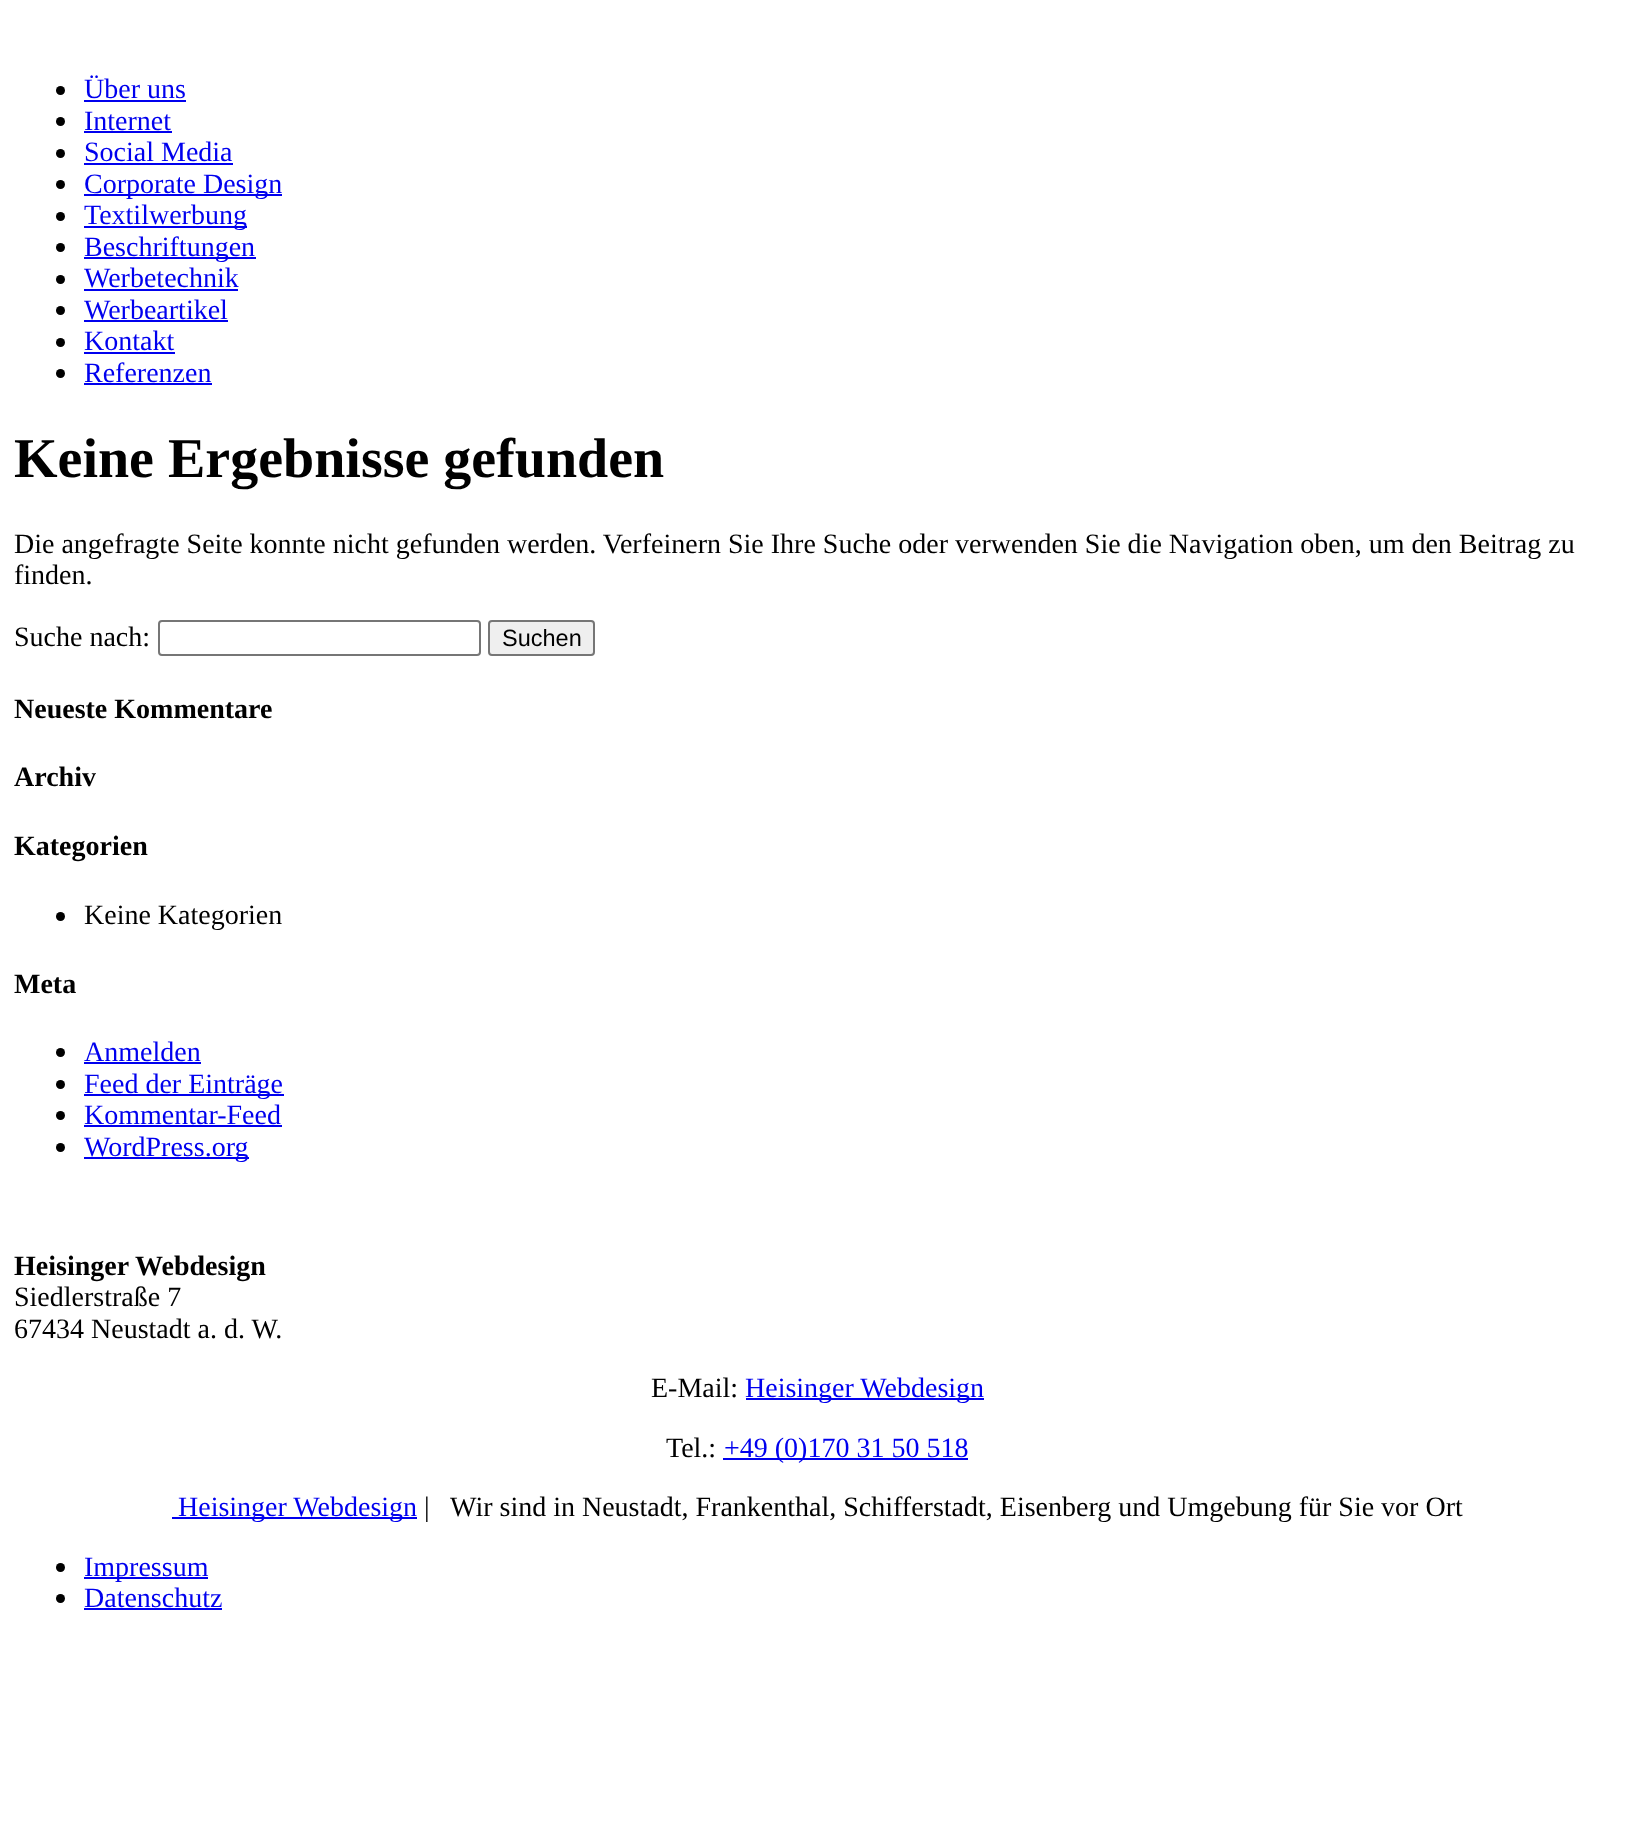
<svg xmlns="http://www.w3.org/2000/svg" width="1633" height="1827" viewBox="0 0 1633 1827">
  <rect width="100%" height="100%" fill="rgb(255,255,255)"/>
  <circle cx="60.5" cy="90.5" r="4.5" fill="rgb(0,0,0)"/>
  <text x="84" y="98" font-family="Liberation Serif" font-size="28" fill="rgb(0,0,238)">Über uns</text>
  <rect x="84" y="100" width="102" height="2" fill="rgb(0,0,238)"/>
  <circle cx="60.5" cy="121.5" r="4.5" fill="rgb(0,0,0)"/>
  <text x="84" y="130" font-family="Liberation Serif" font-size="28" fill="rgb(0,0,238)">Internet</text>
  <rect x="84" y="131" width="88" height="2" fill="rgb(0,0,238)"/>
  <circle cx="60.5" cy="153.5" r="4.5" fill="rgb(0,0,0)"/>
  <text x="84" y="161" font-family="Liberation Serif" font-size="28" fill="rgb(0,0,238)">Social Media</text>
  <rect x="84" y="163" width="149" height="2" fill="rgb(0,0,238)"/>
  <circle cx="60.5" cy="184.5" r="4.5" fill="rgb(0,0,0)"/>
  <rect x="84" y="194" width="198" height="2" fill="rgb(0,0,238)"/>
  <text x="84" y="193" font-family="Liberation Serif" font-size="28" fill="rgb(0,0,238)">Corporate Design</text>
  <circle cx="60.5" cy="216.5" r="4.5" fill="rgb(0,0,0)"/>
  <rect x="84" y="226" width="163" height="2" fill="rgb(0,0,238)"/>
  <text x="84" y="224" font-family="Liberation Serif" font-size="28" fill="rgb(0,0,238)">Textilwerbung</text>
  <circle cx="60.5" cy="247.5" r="4.5" fill="rgb(0,0,0)"/>
  <rect x="84" y="257" width="172" height="2" fill="rgb(0,0,238)"/>
  <text x="84" y="256" font-family="Liberation Serif" font-size="28" fill="rgb(0,0,238)">Beschriftungen</text>
  <circle cx="60.5" cy="279.5" r="4.5" fill="rgb(0,0,0)"/>
  <text x="84" y="287" font-family="Liberation Serif" font-size="28" fill="rgb(0,0,238)">Werbetechnik</text>
  <rect x="84" y="289" width="154" height="2" fill="rgb(0,0,238)"/>
  <circle cx="60.5" cy="310.5" r="4.5" fill="rgb(0,0,0)"/>
  <text x="84" y="319" font-family="Liberation Serif" font-size="28" fill="rgb(0,0,238)">Werbeartikel</text>
  <rect x="84" y="320" width="144" height="2" fill="rgb(0,0,238)"/>
  <circle cx="60.5" cy="342.5" r="4.5" fill="rgb(0,0,0)"/>
  <text x="84" y="350" font-family="Liberation Serif" font-size="28" fill="rgb(0,0,238)">Kontakt</text>
  <rect x="84" y="352" width="91" height="2" fill="rgb(0,0,238)"/>
  <circle cx="60.5" cy="373.5" r="4.5" fill="rgb(0,0,0)"/>
  <text x="84" y="382" font-family="Liberation Serif" font-size="28" fill="rgb(0,0,238)">Referenzen</text>
  <rect x="84" y="383" width="128" height="2" fill="rgb(0,0,238)"/>
  <text x="14" y="477" font-family="Liberation Serif" font-size="56" font-weight="bold" fill="rgb(0,0,0)">Keine Ergebnisse gefunden</text>
  <g font-family="Liberation Serif" font-size="28" fill="rgb(0,0,0)">
    <text>
      <tspan x="14" y="553">Die angefragte Seite konnte nicht gefunden werden. Verfeinern Sie Ihre Suche oder verwenden Sie die Navigation oben, um den Beitrag zu</tspan>
      <tspan x="14" y="584">finden.</tspan>
    </text>
    <text x="14" y="646">Suche nach:</text>
  </g>
  <rect x="159" y="621" width="321" height="34" rx="3" fill="none" stroke="rgb(118,118,118)" stroke-width="2"/>
  <rect x="489" y="621" width="105" height="34" rx="3" fill="rgb(239,239,239)" stroke="rgb(118,118,118)" stroke-width="2"/>
  <text x="502" y="646" font-family="Liberation Sans" font-size="23.5" fill="rgb(0,0,0)">Suchen</text>
  <g font-family="Liberation Serif" font-size="28" font-weight="bold" fill="rgb(0,0,0)">
    <text x="14" y="718">Neueste Kommentare</text>
    <text x="14" y="786">Archiv</text>
    <text x="14" y="855">Kategorien</text>
  </g>
  <circle cx="60.5" cy="916.5" r="4.5" fill="rgb(0,0,0)"/>
  <text x="84" y="924" font-family="Liberation Serif" font-size="28" fill="rgb(0,0,0)">Keine Kategorien</text>
  <text x="14" y="993" font-family="Liberation Serif" font-size="28" font-weight="bold" fill="rgb(0,0,0)">Meta</text>
  <circle cx="60.5" cy="1052.5" r="4.5" fill="rgb(0,0,0)"/>
  <text x="84" y="1061" font-family="Liberation Serif" font-size="28" fill="rgb(0,0,238)">Anmelden</text>
  <rect x="84" y="1062" width="117" height="2" fill="rgb(0,0,238)"/>
  <circle cx="60.5" cy="1084.5" r="4.5" fill="rgb(0,0,0)"/>
  <rect x="84" y="1094" width="200" height="2" fill="rgb(0,0,238)"/>
  <text x="84" y="1093" font-family="Liberation Serif" font-size="28" fill="rgb(0,0,238)">Feed der Einträge</text>
  <circle cx="60.5" cy="1115.5" r="4.5" fill="rgb(0,0,0)"/>
  <text x="84" y="1124" font-family="Liberation Serif" font-size="28" fill="rgb(0,0,238)">Kommentar-Feed</text>
  <rect x="84" y="1125" width="198" height="2" fill="rgb(0,0,238)"/>
  <circle cx="60.5" cy="1147.5" r="4.5" fill="rgb(0,0,0)"/>
  <rect x="84" y="1157" width="165" height="2" fill="rgb(0,0,238)"/>
  <text x="84" y="1156" font-family="Liberation Serif" font-size="28" fill="rgb(0,0,238)">WordPress.org</text>
  <text x="14" y="1275" font-family="Liberation Serif" font-size="28" font-weight="bold" fill="rgb(0,0,0)">Heisinger Webdesign</text>
  <g font-family="Liberation Serif" font-size="28" fill="rgb(0,0,0)">
    <text>
      <tspan x="14" y="1306">Siedlerstraße 7</tspan>
      <tspan x="14" y="1338">67434 Neustadt a. d. W.</tspan>
    </text>
    <text x="651" y="1397">E-Mail:</text>
  </g>
  <rect x="746" y="1398" width="238" height="2" fill="rgb(0,0,238)"/>
  <text x="745" y="1397" font-family="Liberation Serif" font-size="28" fill="rgb(0,0,238)">Heisinger Webdesign</text>
  <text x="666" y="1457" font-family="Liberation Serif" font-size="28" fill="rgb(0,0,0)">Tel.:</text>
  <rect x="723" y="1458" width="245" height="2" fill="rgb(0,0,238)"/>
  <text x="724" y="1457" font-family="Liberation Serif" font-size="28" fill="rgb(0,0,238)">+49 (0)170 31 50 518</text>
  <rect x="172" y="1517" width="245" height="2" fill="rgb(0,0,238)"/>
  <text x="178" y="1516" font-family="Liberation Serif" font-size="28" fill="rgb(0,0,238)">Heisinger Webdesign</text>
  <text x="424" y="1516" font-family="Liberation Serif" font-size="28" fill="rgb(0,0,0)" xml:space="preserve">|   Wir sind in Neustadt, Frankenthal, Schifferstadt, Eisenberg und Umgebung für Sie vor Ort</text>
  <circle cx="60.5" cy="1567.5" r="4.5" fill="rgb(0,0,0)"/>
  <rect x="84" y="1577" width="124" height="2" fill="rgb(0,0,238)"/>
  <text x="84" y="1576" font-family="Liberation Serif" font-size="28" fill="rgb(0,0,238)">Impressum</text>
  <circle cx="60.5" cy="1598.5" r="4.5" fill="rgb(0,0,0)"/>
  <text x="84" y="1607" font-family="Liberation Serif" font-size="28" fill="rgb(0,0,238)">Datenschutz</text>
  <rect x="84" y="1608" width="138" height="2" fill="rgb(0,0,238)"/>
</svg>
